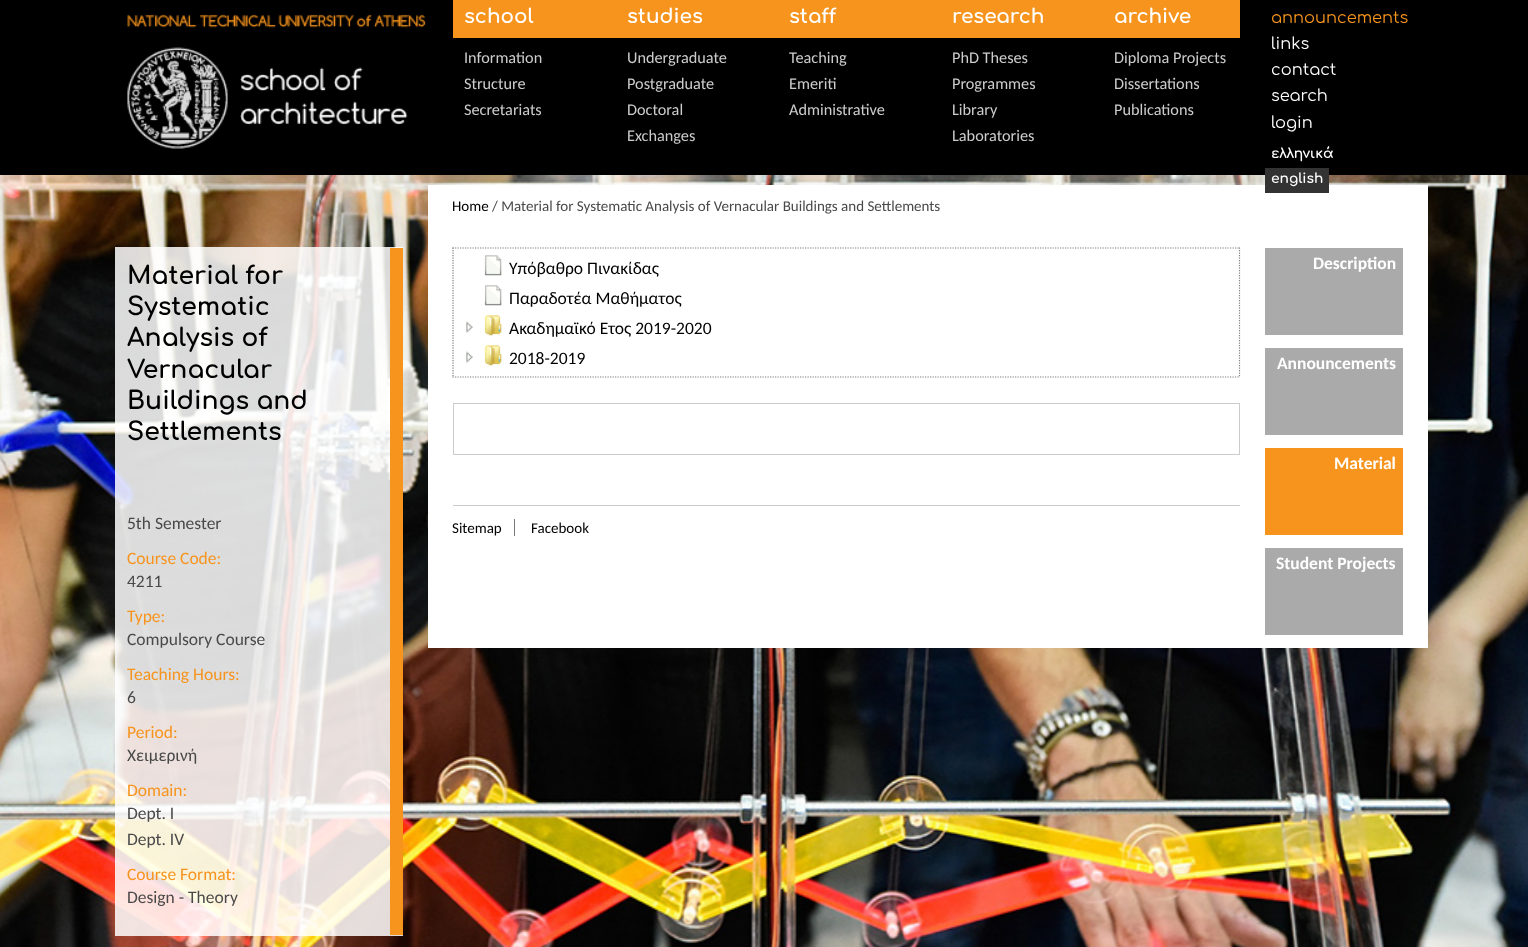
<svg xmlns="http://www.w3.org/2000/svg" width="1528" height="947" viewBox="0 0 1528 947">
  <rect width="100%" height="100%" fill="rgb(255,255,255)"/>
  <rect x="0" y="0" width="1528" height="175" fill="rgb(0,0,0)"/>
  <image x="127" y="14" width="299" height="135" href="pic1.png"/>
  <rect x="453" y="0" width="787" height="38" fill="rgb(247,148,29)"/>
  <text x="464" y="23" font-family="Comfortaa" font-size="20" font-weight="bold" fill="rgb(255,255,255)">school</text>
  <g font-family="Carlito" font-size="16.25" fill="rgb(204,204,204)">
    <text>
      <tspan x="464" y="63">Information</tspan>
      <tspan x="464" y="89">Structure</tspan>
      <tspan x="464" y="115">Secretariats</tspan>
    </text>
  </g>
  <text x="627" y="23" font-family="Comfortaa" font-size="20" font-weight="bold" fill="rgb(255,255,255)">studies</text>
  <g font-family="Carlito" font-size="16.25" fill="rgb(204,204,204)">
    <text>
      <tspan x="627" y="63">Undergraduate</tspan>
      <tspan x="627" y="89">Postgraduate</tspan>
      <tspan x="627" y="115">Doctoral</tspan>
      <tspan x="627" y="141">Exchanges</tspan>
    </text>
  </g>
  <text x="789" y="23" font-family="Comfortaa" font-size="20" font-weight="bold" fill="rgb(255,255,255)">staff</text>
  <g font-family="Carlito" font-size="16.25" fill="rgb(204,204,204)">
    <text>
      <tspan x="789" y="63">Teaching</tspan>
      <tspan x="789" y="89">Emeriti</tspan>
      <tspan x="789" y="115">Administrative</tspan>
    </text>
  </g>
  <text x="952" y="23" font-family="Comfortaa" font-size="20" font-weight="bold" fill="rgb(255,255,255)">research</text>
  <g font-family="Carlito" font-size="16.25" fill="rgb(204,204,204)">
    <text>
      <tspan x="952" y="63">PhD Theses</tspan>
      <tspan x="952" y="89">Programmes</tspan>
      <tspan x="952" y="115">Library</tspan>
      <tspan x="952" y="141">Laboratories</tspan>
    </text>
  </g>
  <text x="1114" y="23" font-family="Comfortaa" font-size="20" font-weight="bold" fill="rgb(255,255,255)">archive</text>
  <g font-family="Carlito" font-size="16.25" fill="rgb(204,204,204)">
    <text>
      <tspan x="1114" y="63">Diploma Projects</tspan>
      <tspan x="1114" y="89">Dissertations</tspan>
      <tspan x="1114" y="115">Publications</tspan>
    </text>
  </g>
  <text x="1271" y="23" font-family="Comfortaa" font-size="16.25" fill="rgb(247,148,29)">announcements</text>
  <g font-family="Comfortaa" font-size="16.25" fill="rgb(255,255,255)">
    <text>
      <tspan x="1271" y="49">links</tspan>
      <tspan x="1271" y="75">contact</tspan>
      <tspan x="1271" y="101">search</tspan>
      <tspan x="1271" y="128">login</tspan>
    </text>
  </g>
  <text x="1271" y="158" font-family="Comfortaa" font-size="13.75" font-weight="bold" fill="rgb(255,255,255)">ελληνικά</text>
  <image x="0" y="175" width="1528" height="772" href="pic2.png"/>
  <rect x="428" y="185" width="1000" height="463" fill="rgb(255,255,255)"/>
  <rect x="1265" y="168" width="64" height="25" fill="rgb(51,51,51)"/>
  <text x="1271" y="183" font-family="Comfortaa" font-size="13.75" font-weight="bold" fill="rgb(255,255,255)">english</text>
  <rect x="115" y="247" width="288" height="689" fill="rgba(255,255,255,0.85)"/>
  <rect x="390" y="248" width="13" height="687" fill="rgb(247,148,29)"/>
  <g font-family="Comfortaa" font-size="25" font-weight="bold" fill="rgb(0,0,0)">
    <text>
      <tspan x="127" y="284">Material for</tspan>
      <tspan x="127" y="315">Systematic</tspan>
      <tspan x="127" y="346">Analysis of</tspan>
      <tspan x="127" y="378">Vernacular</tspan>
      <tspan x="127" y="409">Buildings and</tspan>
      <tspan x="127" y="440">Settlements</tspan>
    </text>
  </g>
  <text x="127" y="529" font-family="Carlito" font-size="17.5" fill="rgb(73,73,73)">5th Semester</text>
  <text x="127" y="564" font-family="Carlito" font-size="17.5" fill="rgb(247,148,29)">Course Code:</text>
  <text x="127" y="587" font-family="Carlito" font-size="17.5" fill="rgb(73,73,73)">4211</text>
  <text x="127" y="622" font-family="Carlito" font-size="17.5" fill="rgb(247,148,29)">Type:</text>
  <text x="127" y="645" font-family="Carlito" font-size="17.5" fill="rgb(73,73,73)">Compulsory Course</text>
  <text x="127" y="680" font-family="Carlito" font-size="17.5" fill="rgb(247,148,29)">Teaching Hours:</text>
  <text x="127" y="703" font-family="Carlito" font-size="17.5" fill="rgb(73,73,73)">6</text>
  <text x="127" y="738" font-family="Carlito" font-size="17.5" fill="rgb(247,148,29)">Period:</text>
  <text x="127" y="761" font-family="Carlito" font-size="17.5" fill="rgb(73,73,73)">Χειμερινή</text>
  <text x="127" y="796" font-family="Carlito" font-size="17.5" fill="rgb(247,148,29)">Domain:</text>
  <g font-family="Carlito" font-size="17.5" fill="rgb(73,73,73)">
    <text>
      <tspan x="127" y="819">Dept. Ι</tspan>
      <tspan x="127" y="845">Dept. IV</tspan>
    </text>
  </g>
  <text x="127" y="880" font-family="Carlito" font-size="17.5" fill="rgb(247,148,29)">Course Format:</text>
  <text x="127" y="903" font-family="Carlito" font-size="17.5" fill="rgb(73,73,73)">Design - Theory</text>
  <text x="452" y="211" font-family="Carlito" font-size="15" fill="rgb(0,0,0)">Home</text>
  <text x="492" y="211" font-family="Carlito" font-size="15" fill="rgb(73,73,73)">/ Material for Systematic Analysis of Vernacular Buildings and Settlements</text>
  <path d="M452.5 248H1240" fill="none" stroke="rgb(128,128,128)" stroke-width="1.2" stroke-dasharray="1.25 1.25"/>
  <path d="M1239.5 247.5V377.5" fill="none" stroke="rgb(128,128,128)" stroke-width="1.2" stroke-dasharray="1.25 1.25"/>
  <path d="M452.5 377H1240" fill="none" stroke="rgb(128,128,128)" stroke-width="1.2" stroke-dasharray="1.25 1.25"/>
  <path d="M453 247.5V377.5" fill="none" stroke="rgb(128,128,128)" stroke-width="1.2" stroke-dasharray="1.25 1.25"/>
  <image x="484" y="255" width="18" height="21" href="pic3.png"/>
  <text x="509" y="274" font-family="Carlito" font-size="17.5" fill="rgb(0,0,0)">Υπόβαθρο Πινακίδας</text>
  <image x="484" y="285" width="18" height="21" href="pic3.png"/>
  <text x="509" y="304" font-family="Carlito" font-size="17.5" fill="rgb(0,0,0)">Παραδοτέα Μαθήματος</text>
  <image x="466" y="321" width="7" height="12" href="pic4.png"/>
  <image x="484" y="315" width="18" height="21" href="pic5.png"/>
  <text x="509" y="334" font-family="Carlito" font-size="17.5" fill="rgb(0,0,0)">Ακαδημαϊκό Ετος 2019-2020</text>
  <image x="466" y="351" width="7" height="12" href="pic4.png"/>
  <image x="484" y="345" width="18" height="21" href="pic5.png"/>
  <text x="509" y="364" font-family="Carlito" font-size="17.5" fill="rgb(0,0,0)">2018-2019</text>
  <rect x="453.5" y="403.5" width="786" height="51" fill="none" stroke="rgb(204,204,204)"/>
  <rect x="453" y="505" width="787" height="1" fill="rgb(204,204,204)"/>
  <text x="452" y="533" font-family="Carlito" font-size="15" fill="rgb(0,0,0)">Sitemap</text>
  <rect x="514" y="519" width="1" height="17" fill="rgb(119,119,119)"/>
  <text x="531" y="533" font-family="Carlito" font-size="15" fill="rgb(0,0,0)">Facebook</text>
  <rect x="1265" y="248" width="138" height="87" fill="rgb(170,170,170)"/>
  <text x="1313" y="269" font-family="Carlito" font-size="17.5" font-weight="bold" fill="rgb(255,255,255)">Description</text>
  <rect x="1265" y="348" width="138" height="87" fill="rgb(170,170,170)"/>
  <text x="1277" y="369" font-family="Carlito" font-size="17.5" font-weight="bold" fill="rgb(255,255,255)">Announcements</text>
  <rect x="1265" y="448" width="138" height="87" fill="rgb(247,148,29)"/>
  <text x="1334" y="469" font-family="Carlito" font-size="17.5" font-weight="bold" fill="rgb(255,255,255)">Material</text>
  <rect x="1265" y="548" width="138" height="87" fill="rgb(170,170,170)"/>
  <text x="1276" y="569" font-family="Carlito" font-size="17.5" font-weight="bold" fill="rgb(255,255,255)">Student Projects</text>
</svg>
